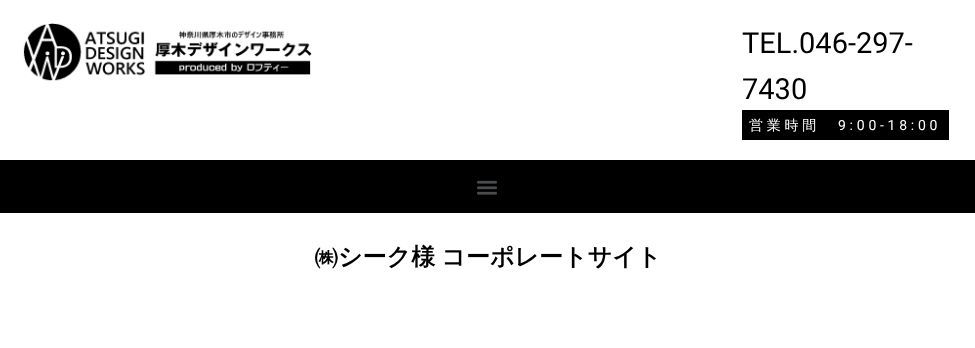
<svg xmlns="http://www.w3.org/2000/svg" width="975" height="348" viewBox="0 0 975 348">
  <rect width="100%" height="100%" fill="rgb(255,255,255)"/>
  <image x="23" y="23" width="289" height="58" href="pic1.png"/>
  <g font-family="Roboto" font-size="29" fill="rgb(0,0,0)">
    <text>
      <tspan x="742" y="53">TEL.046-297-</tspan>
      <tspan x="742" y="99">7430</tspan>
    </text>
  </g>
  <rect x="742" y="110" width="207" height="30" fill="rgb(0,0,0)"/>
  <text x="749" y="130" font-family="WenQuanYi Zen Hei" font-size="14" font-weight="500" letter-spacing="3.75" fill="rgb(255,255,255)">営業時間</text>
  <text x="838" y="130" font-family="Roboto" font-size="14" letter-spacing="3.75" fill="rgb(255,255,255)">9:00-18:00</text>
  <rect x="0" y="160" width="975" height="53" fill="rgb(0,0,0)"/>
  <image x="477" y="180" width="20" height="15" href="pic2.png"/>
  <text x="314" y="265" word-spacing="-1" font-family="WenQuanYi Zen Hei" font-size="24" font-weight="bold" fill="rgb(0,0,0)">㈱シーク様 コーポレートサイト</text>
</svg>
